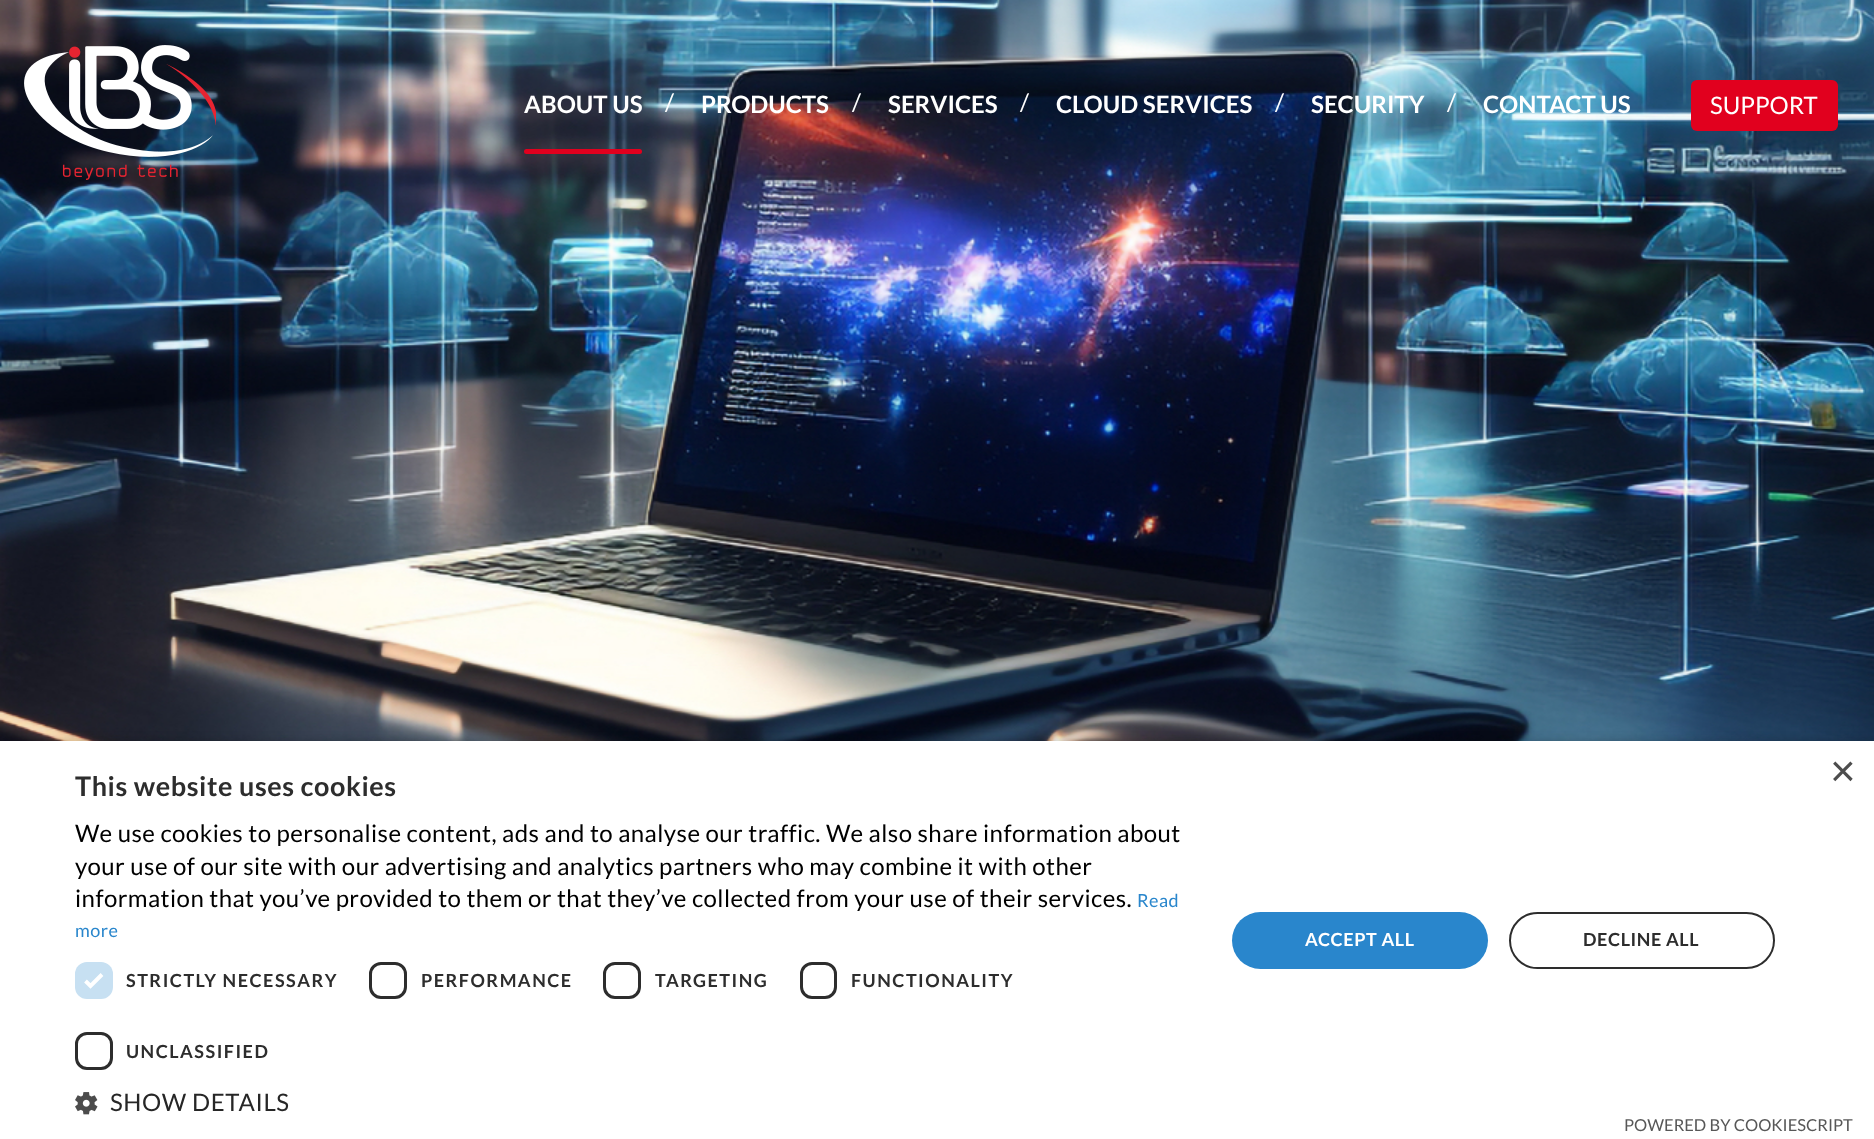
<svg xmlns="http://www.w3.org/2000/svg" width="1874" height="1139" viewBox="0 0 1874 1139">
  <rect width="100%" height="100%" fill="rgb(255,255,255)"/>
  <image x="0" y="0" width="1874" height="741" href="pic1.png"/>
  <image x="24" y="45" width="192" height="135" href="pic2.png"/>
  <text x="524" y="113" font-family="Lato" font-size="24" font-weight="bold" fill="rgb(255,255,255)">ABOUT US</text>
  <rect x="524" y="149" width="118" height="5" rx="2.5" fill="rgb(225,0,30)"/>
  <text x="665" y="111" font-family="Lato" font-size="24" fill="rgb(255,255,255)">/</text>
  <text x="701" y="113" font-family="Lato" font-size="24" font-weight="bold" fill="rgb(255,255,255)">PRODUCTS</text>
  <text x="852" y="111" font-family="Lato" font-size="24" fill="rgb(255,255,255)">/</text>
  <text x="888" y="113" font-family="Lato" font-size="24" font-weight="bold" fill="rgb(255,255,255)">SERVICES</text>
  <text x="1020" y="111" font-family="Lato" font-size="24" fill="rgb(255,255,255)">/</text>
  <text x="1056" y="113" font-family="Lato" font-size="24" font-weight="bold" fill="rgb(255,255,255)">CLOUD SERVICES</text>
  <text x="1275" y="111" font-family="Lato" font-size="24" fill="rgb(255,255,255)">/</text>
  <text x="1311" y="113" font-family="Lato" font-size="24" font-weight="bold" fill="rgb(255,255,255)">SECURITY</text>
  <text x="1447" y="111" font-family="Lato" font-size="24" fill="rgb(255,255,255)">/</text>
  <text x="1483" y="113" font-family="Lato" font-size="24" font-weight="bold" fill="rgb(255,255,255)">CONTACT US</text>
  <rect x="1691" y="80" width="147" height="51" rx="6" fill="rgb(225,0,30)"/>
  <text x="1710" y="114" font-family="Lato" font-size="24" fill="rgb(255,255,255)">SUPPORT</text>
  <rect x="2" y="744" width="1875" height="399" fill="rgba(0,0,0,0.35)" filter="blur(6px)"/>
  <rect x="0" y="741" width="1874" height="398" fill="rgb(255,255,255)"/>
  <text x="1830" y="786" font-family="Liberation Sans" font-size="44" fill="rgb(77,77,77)">×</text>
  <text x="75" y="796" font-family="Lato" font-size="27" font-weight="bold" letter-spacing="0.6" fill="rgb(45,45,45)">This website uses cookies</text>
  <g font-family="Lato" font-size="24" letter-spacing="0.45" fill="rgb(0,0,0)">
    <text>
      <tspan x="75" y="842">We use cookies to personalise content, ads and to analyse our traffic. We also share information about</tspan>
      <tspan x="75" y="875">your use of our site with our advertising and analytics partners who may combine it with other</tspan>
      <tspan x="75" y="907">information that you’ve provided to them or that they’ve collected from your use of their services.</tspan>
    </text>
  </g>
  <g font-family="Lato" font-size="18" letter-spacing="0.45" fill="rgb(41,134,204)">
    <text x="1137" y="907">Read</text>
    <text x="75" y="937">more</text>
  </g>
  <rect x="75" y="962" width="38" height="37" rx="12" fill="rgb(199,224,242)"/>
  <path d="M85.5 981L90.5 986L102 974.5" fill="none" stroke="rgb(255,255,255)" stroke-width="3.9"/>
  <text x="126" y="987" font-family="Lato" font-size="18" font-weight="bold" letter-spacing="1.5" fill="rgb(45,45,45)">STRICTLY NECESSARY</text>
  <rect x="370.5" y="963.5" width="35" height="34" rx="10.5" fill="none" stroke="rgb(45,45,45)" stroke-width="3"/>
  <text x="421" y="987" font-family="Lato" font-size="18" font-weight="bold" letter-spacing="1.5" fill="rgb(45,45,45)">PERFORMANCE</text>
  <rect x="604.5" y="963.5" width="35" height="34" rx="10.5" fill="none" stroke="rgb(45,45,45)" stroke-width="3"/>
  <text x="655" y="987" font-family="Lato" font-size="18" font-weight="bold" letter-spacing="1.5" fill="rgb(45,45,45)">TARGETING</text>
  <rect x="801.5" y="963.5" width="34" height="34" rx="10.5" fill="none" stroke="rgb(45,45,45)" stroke-width="3"/>
  <text x="851" y="987" font-family="Lato" font-size="18" font-weight="bold" letter-spacing="1.5" fill="rgb(45,45,45)">FUNCTIONALITY</text>
  <rect x="76.5" y="1033.5" width="35" height="35" rx="10.5" fill="none" stroke="rgb(45,45,45)" stroke-width="3"/>
  <text x="126" y="1058" font-family="Lato" font-size="18" font-weight="bold" letter-spacing="1.5" fill="rgb(45,45,45)">UNCLASSIFIED</text>
  <image x="75" y="1092" width="23" height="23" href="pic3.png"/>
  <text x="110" y="1111" font-family="Lato" font-size="24" letter-spacing="0.6" fill="rgb(38,38,38)">SHOW DETAILS</text>
  <rect x="1232" y="912" width="256" height="57" rx="28.5" fill="rgb(41,134,204)"/>
  <text x="1305" y="946" font-family="Lato" font-size="18" font-weight="bold" letter-spacing="0.6" fill="rgb(255,255,255)">ACCEPT ALL</text>
  <rect x="1510" y="913" width="264" height="55" rx="27.5" fill="none" stroke="rgb(45,45,45)" stroke-width="2"/>
  <text x="1583" y="946" font-family="Lato" font-size="18" font-weight="bold" letter-spacing="0.6" fill="rgb(45,45,45)">DECLINE ALL</text>
  <text x="1624" y="1131" font-family="Lato" font-size="16.5" fill="rgb(87,87,87)">POWERED BY COOKIESCRIPT</text>
</svg>
